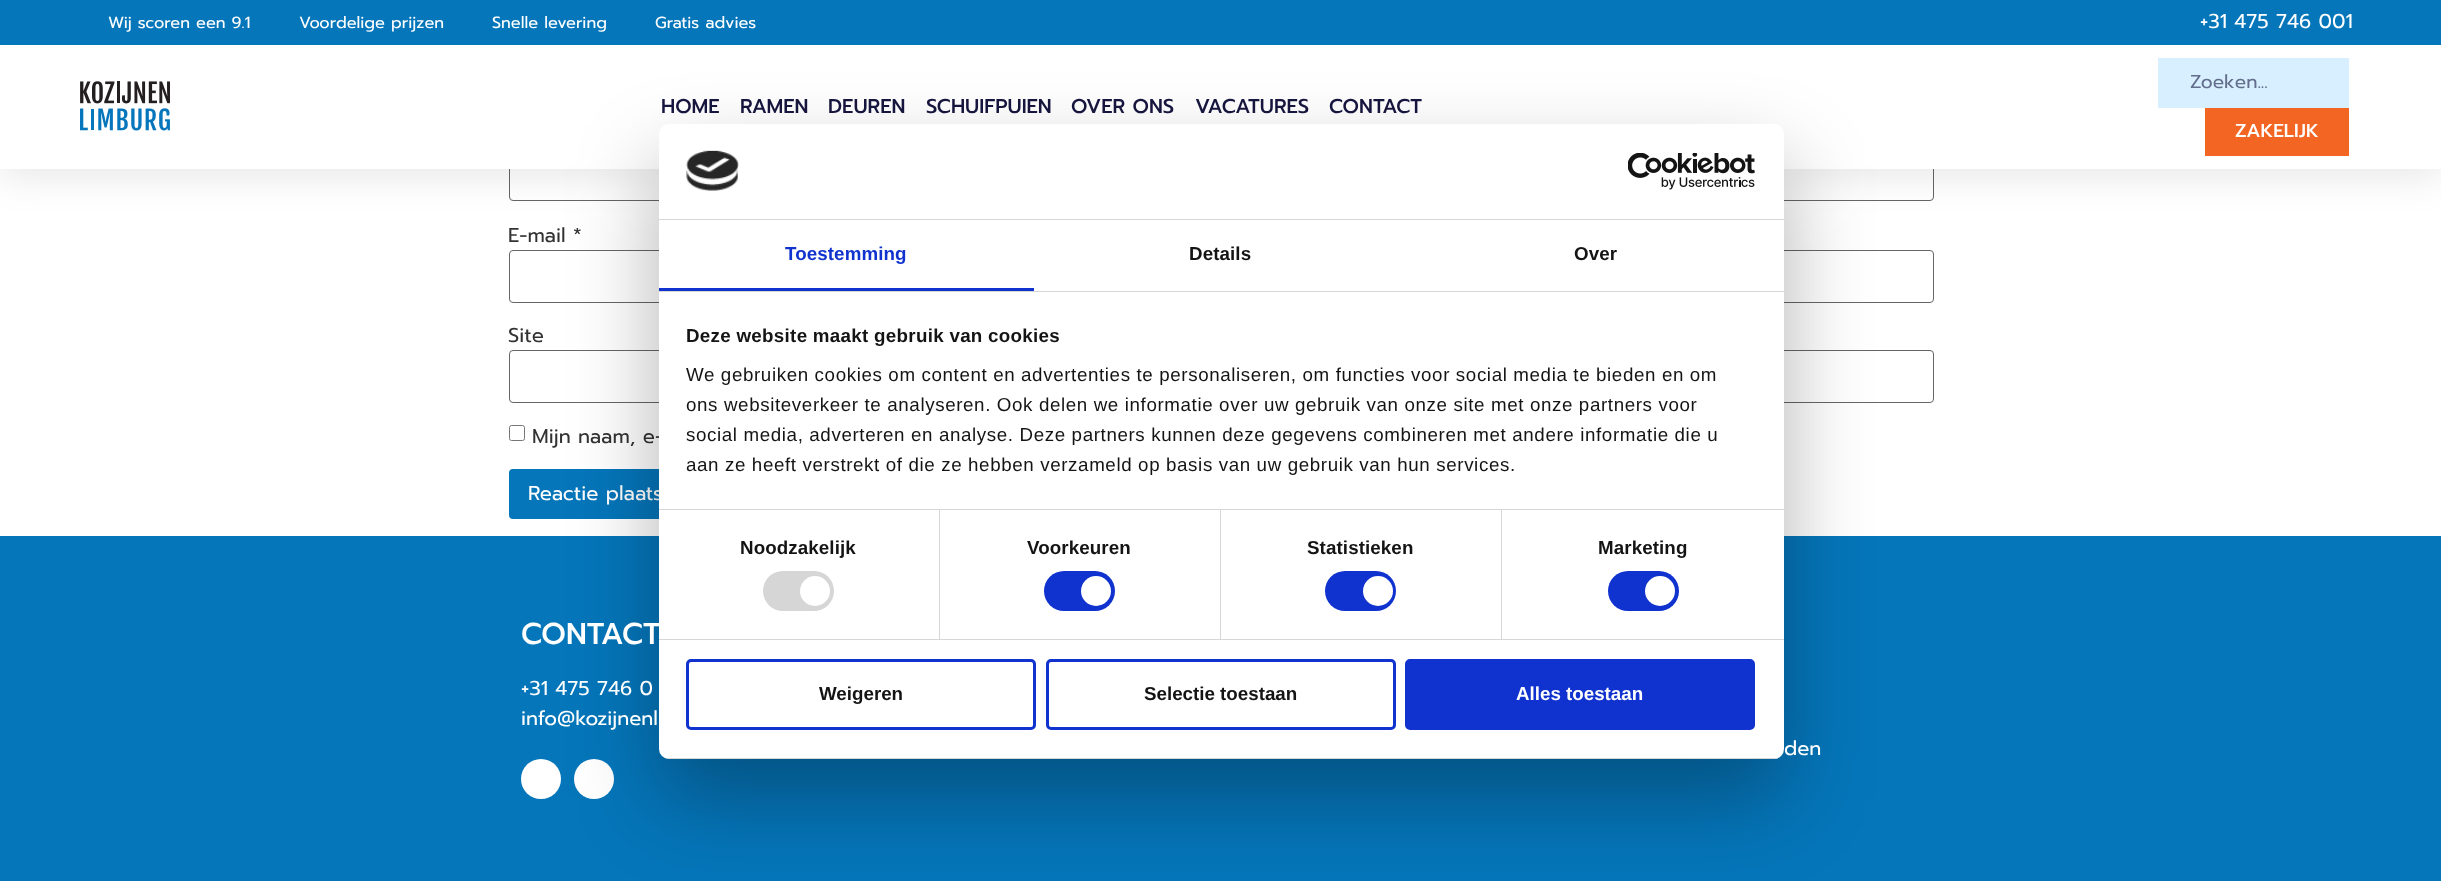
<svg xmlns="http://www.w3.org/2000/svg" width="2441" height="881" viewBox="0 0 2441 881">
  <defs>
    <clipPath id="clip1"><rect x="659" y="124" width="1125" height="635" rx="10"/></clipPath>
  </defs>
  <rect width="100%" height="100%" fill="rgb(255,255,255)"/>
  <rect x="509.5" y="149.5" width="1424" height="51" rx="3.5" fill="none" stroke="rgb(102,102,102)"/>
  <rect x="0" y="6" width="2441" height="169" fill="rgba(0,0,0,0.1)" filter="blur(19px)"/>
  <rect x="0" y="0" width="2441" height="45" fill="rgb(5,118,186)"/>
  <g font-family="Prompt" font-size="16.25" fill="rgb(255,255,255)">
    <text x="108" y="28">Wij scoren een 9.1</text>
    <text x="299" y="28">Voordelige prijzen</text>
    <text x="492" y="28">Snelle levering</text>
    <text x="655" y="28">Gratis advies</text>
  </g>
  <text x="2200" y="28" font-family="Prompt" font-size="20" fill="rgb(255,255,255)">+31 475 746 001</text>
  <rect x="0" y="45" width="2441" height="124" fill="rgb(255,255,255)"/>
  <image x="80" y="81" width="90" height="50" href="pic1.png"/>
  <g font-family="Prompt" font-size="20" font-weight="500" fill="rgb(22,22,63)">
    <text x="661" y="113">HOME</text>
    <text x="740" y="113">RAMEN</text>
    <text x="828" y="113">DEUREN</text>
    <text x="926" y="113">SCHUIFPUIEN</text>
    <text x="1071" y="113">OVER ONS</text>
    <text x="1195" y="113">VACATURES</text>
    <text x="1329" y="113">CONTACT</text>
  </g>
  <rect x="2158" y="58" width="191" height="50" fill="rgb(215,239,255)"/>
  <text x="2190" y="88" font-family="Prompt" font-size="18.75" fill="rgb(99,109,140)">Zoeken...</text>
  <rect x="2205" y="108" width="144" height="48" fill="rgb(242,101,34)"/>
  <text x="2235" y="137" font-family="Prompt" font-size="18.75" font-weight="500" fill="rgb(255,255,255)">ZAKELIJK</text>
  <text x="508" y="242" font-family="Prompt" font-size="20" fill="rgb(51,51,51)">E-mail *</text>
  <rect x="509.5" y="250.5" width="1424" height="52" rx="3.5" fill="none" stroke="rgb(102,102,102)"/>
  <text x="508" y="342" font-family="Prompt" font-size="20" fill="rgb(51,51,51)">Site</text>
  <rect x="509.5" y="350.5" width="1424" height="52" rx="3.5" fill="none" stroke="rgb(102,102,102)"/>
  <rect x="509.5" y="425.5" width="15" height="15" rx="2" fill="none" stroke="rgb(118,118,118)"/>
  <text x="532" y="443" font-family="Prompt" font-size="20" fill="rgb(51,51,51)">Mijn naam, e-</text>
  <rect x="509" y="469" width="199" height="50" rx="4" fill="rgb(5,118,186)"/>
  <text x="528" y="500" font-family="Prompt" font-size="20" fill="rgb(255,255,255)">Reactie plaats</text>
  <rect x="0" y="536" width="2441" height="345" fill="rgb(5,118,186)"/>
  <circle cx="541" cy="779" r="20" fill="rgb(255,255,255)"/>
  <circle cx="594" cy="779" r="20" fill="rgb(255,255,255)"/>
  <rect x="659" y="164" width="1125" height="635" rx="10" fill="rgba(0,0,0,0.3)" filter="blur(42.5px)"/>
  <rect x="659" y="124" width="1125" height="635" rx="10" fill="rgb(255,255,255)"/>
  <rect x="659" y="219" width="1125" height="1" fill="rgb(214,214,214)"/>
  <image x="686" y="150" width="53" height="41" href="pic2.png"/>
  <image x="1628" y="153" width="127" height="37" href="pic3.png"/>
  <rect x="659" y="291" width="1125" height="1" fill="rgb(214,214,214)"/>
  <rect x="659" y="288" width="375" height="3" fill="rgb(16,50,207)"/>
  <text x="785" y="260" font-family="Liberation Sans" font-size="18.75" font-weight="bold" letter-spacing="0.1" fill="rgb(16,50,207)">Toestemming</text>
  <g font-family="Liberation Sans" font-size="18.75" font-weight="bold" letter-spacing="0.1" fill="rgb(20,20,20)">
    <text x="1189" y="260">Details</text>
    <text x="1574" y="260">Over</text>
  </g>
  <rect x="659" y="509" width="1125" height="1" fill="rgb(214,214,214)"/>
  <text x="686" y="342" font-family="Liberation Sans" font-size="18.75" font-weight="bold" letter-spacing="0.3" fill="rgb(20,20,20)">Deze website maakt gebruik van cookies</text>
  <g font-family="Liberation Sans" font-size="18.75" letter-spacing="0.62" fill="rgb(20,20,20)">
    <text>
      <tspan x="686" y="381">We gebruiken cookies om content en advertenties te personaliseren, om functies voor social media te bieden en om</tspan>
      <tspan x="686" y="411">ons websiteverkeer te analyseren. Ook delen we informatie over uw gebruik van onze site met onze partners voor</tspan>
      <tspan x="686" y="441">social media, adverteren en analyse. Deze partners kunnen deze gegevens combineren met andere informatie die u</tspan>
      <tspan x="686" y="471">aan ze heeft verstrekt of die ze hebben verzameld op basis van uw gebruik van hun services.</tspan>
    </text>
  </g>
  <text x="521" y="644" font-family="Prompt" font-size="30" font-weight="500" fill="rgb(255,255,255)">CONTACT</text>
  <rect x="659" y="639" width="1125" height="1" fill="rgb(214,214,214)"/>
  <rect x="939" y="510" width="1" height="129" fill="rgb(214,214,214)"/>
  <text x="740" y="554" font-family="Liberation Sans" font-size="18.75" font-weight="bold" letter-spacing="0.1" fill="rgb(20,20,20)">Noodzakelijk</text>
  <rect x="763" y="571" width="71" height="40" rx="20" fill="rgb(214,214,214)"/>
  <circle cx="815" cy="591" r="15" fill="rgb(255,255,255)"/>
  <rect x="1220" y="510" width="1" height="129" fill="rgb(214,214,214)"/>
  <text x="1027" y="554" font-family="Liberation Sans" font-size="18.75" font-weight="bold" letter-spacing="0.1" fill="rgb(20,20,20)">Voorkeuren</text>
  <rect x="1044" y="571" width="71" height="40" rx="20" fill="rgb(16,50,207)"/>
  <circle cx="1096" cy="591" r="15" fill="rgb(255,255,255)"/>
  <rect x="1501" y="510" width="1" height="129" fill="rgb(214,214,214)"/>
  <text x="1307" y="554" font-family="Liberation Sans" font-size="18.75" font-weight="bold" letter-spacing="0.1" fill="rgb(20,20,20)">Statistieken</text>
  <rect x="1325" y="571" width="71" height="40" rx="20" fill="rgb(16,50,207)"/>
  <circle cx="1378" cy="591" r="15" fill="rgb(255,255,255)"/>
  <text x="1598" y="554" font-family="Liberation Sans" font-size="18.75" font-weight="bold" letter-spacing="0.1" fill="rgb(20,20,20)">Marketing</text>
  <rect x="1608" y="571" width="71" height="40" rx="20" fill="rgb(16,50,207)"/>
  <circle cx="1660" cy="591" r="15" fill="rgb(255,255,255)"/>
  <g clip-path="url(#clip1)">
    <rect x="659" y="758" width="1125" height="1" fill="rgb(214,214,214)"/>
  </g>
  <rect x="687.5" y="660.5" width="347" height="68" rx="3.5" fill="none" stroke="rgb(16,50,207)" stroke-width="3"/>
  <text x="819" y="700" font-family="Liberation Sans" font-size="18.75" font-weight="bold" fill="rgb(20,20,20)">Weigeren</text>
  <rect x="1047.5" y="660.5" width="347" height="68" rx="3.5" fill="none" stroke="rgb(16,50,207)" stroke-width="3"/>
  <text x="1144" y="700" font-family="Liberation Sans" font-size="18.75" font-weight="bold" fill="rgb(20,20,20)">Selectie toestaan</text>
  <rect x="1406.5" y="660.5" width="347" height="68" rx="3.5" fill="rgb(16,50,207)" stroke="rgb(16,50,207)" stroke-width="3"/>
  <text x="1516" y="700" font-family="Liberation Sans" font-size="18.75" font-weight="bold" fill="rgb(255,255,255)">Alles toestaan</text>
  <g font-family="Prompt" font-size="20" fill="rgb(255,255,255)">
    <text>
      <tspan x="521" y="695">+31 475 746 0</tspan>
      <tspan x="521" y="725">info@kozijnenl</tspan>
    </text>
    <text x="1784" y="755">den</text>
  </g>
</svg>
